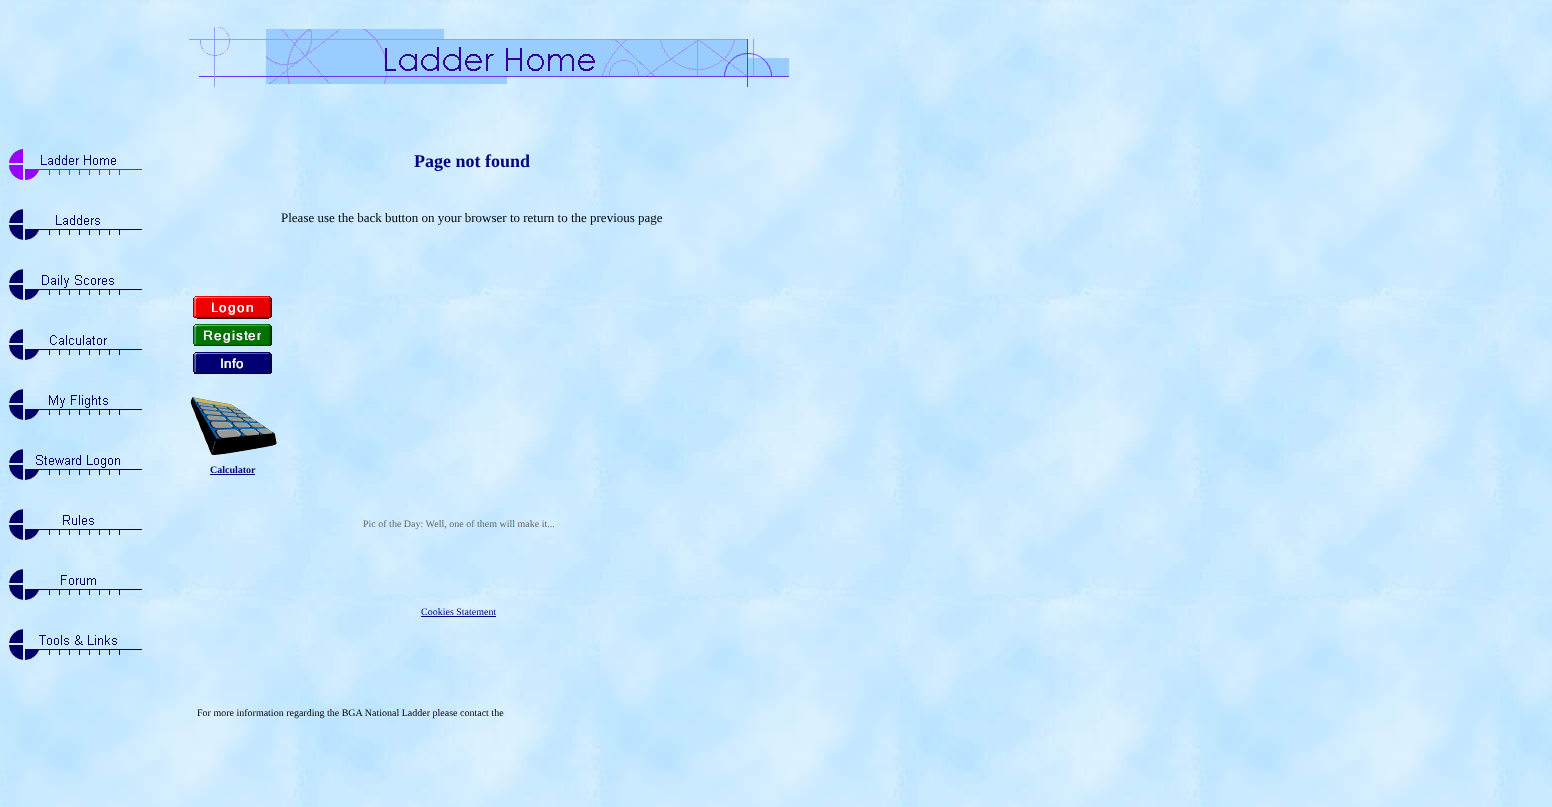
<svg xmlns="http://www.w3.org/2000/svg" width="1552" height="807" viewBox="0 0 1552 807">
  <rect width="100%" height="100%" fill="rgb(255,255,255)"/>
  <image x="0" y="0" width="1552" height="807" href="pic1.png"/>
  <image x="189" y="27" width="600" height="60" href="pic2.png"/>
  <image x="9" y="149" width="133" height="31" href="pic3.png"/>
  <image x="9" y="209" width="133" height="31" href="pic4.png"/>
  <image x="9" y="269" width="133" height="31" href="pic5.png"/>
  <image x="9" y="329" width="133" height="31" href="pic6.png"/>
  <image x="9" y="389" width="133" height="31" href="pic7.png"/>
  <image x="9" y="449" width="133" height="31" href="pic8.png"/>
  <image x="9" y="509" width="133" height="31" href="pic9.png"/>
  <image x="9" y="569" width="133" height="31" href="pic10.png"/>
  <image x="9" y="629" width="133" height="31" href="pic11.png"/>
  <text x="414" y="167" font-family="Liberation Serif" font-size="18" font-weight="bold" fill="rgb(0,0,128)">Page not found</text>
  <text x="281" y="222" font-family="Liberation Serif" font-size="13" fill="rgb(0,0,11)">Please use the back button on your browser to return to the previous page</text>
  <image x="193" y="296" width="79" height="23" href="pic12.png"/>
  <image x="193" y="324" width="79" height="22" href="pic13.png"/>
  <image x="193" y="352" width="79" height="22" href="pic14.png"/>
  <image x="190" y="397" width="87" height="58" href="pic15.png"/>
  <text x="210" y="473" font-family="Liberation Serif" font-size="10" font-weight="bold" fill="rgb(0,0,128)">Calculator</text>
  <rect x="210" y="474" width="45" height="1" fill="rgb(0,0,128)"/>
  <text x="363" y="527" font-family="Liberation Serif" font-size="10" fill="rgb(102,102,102)">Pic of the Day: Well, one of them will make it...</text>
  <text x="421" y="615" font-family="Liberation Serif" font-size="10" fill="rgb(0,0,128)">Cookies Statement</text>
  <rect x="421" y="616" width="75" height="1" fill="rgb(0,0,128)"/>
  <text x="197" y="716" font-family="Liberation Serif" font-size="10" fill="rgb(0,0,0)">For more information regarding the BGA National Ladder please contact the</text>
</svg>
